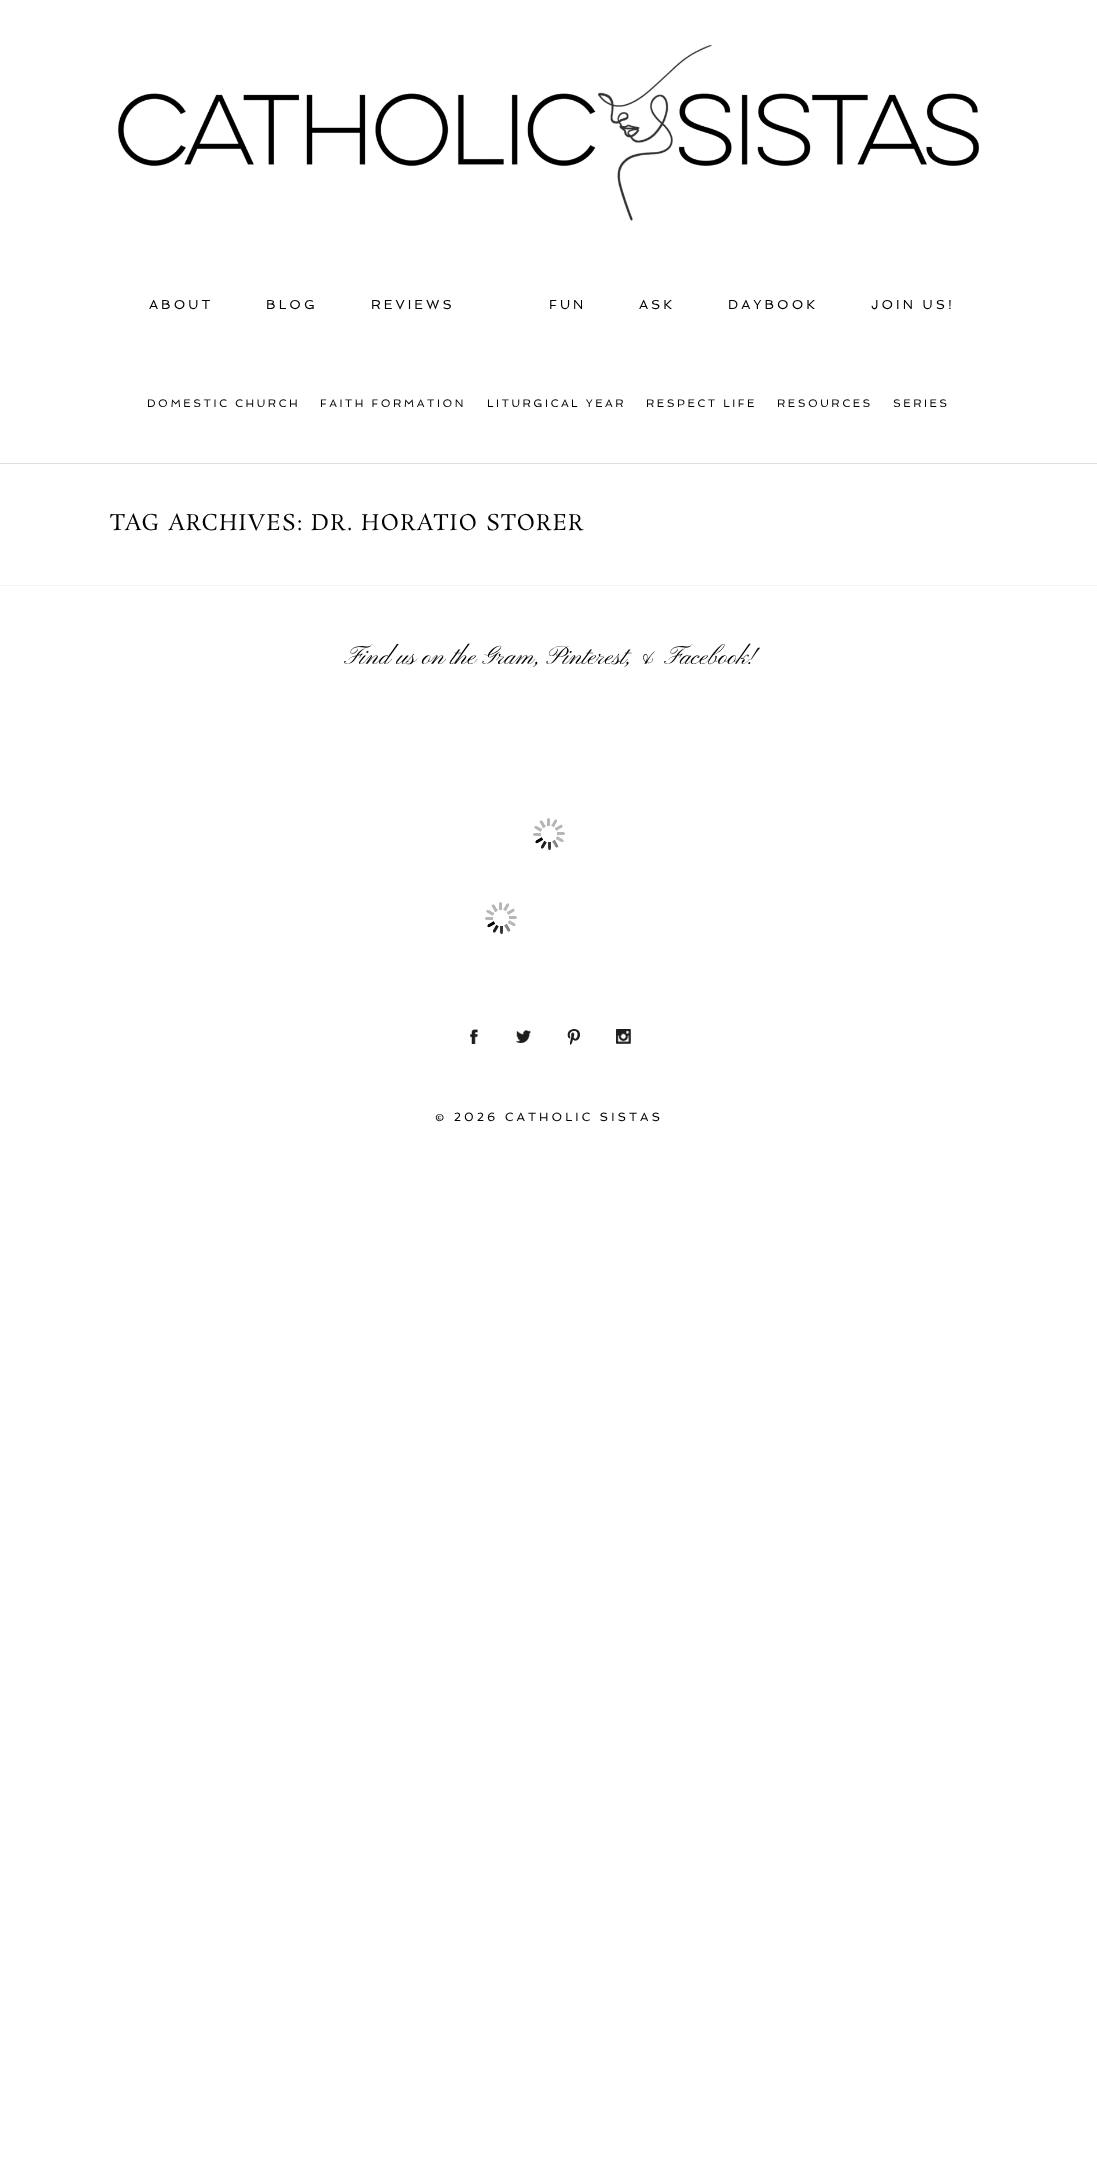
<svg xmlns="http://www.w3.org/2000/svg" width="1097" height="2164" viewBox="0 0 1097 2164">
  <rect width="100%" height="100%" fill="rgb(255,255,255)"/>
  <image x="118" y="44" width="862" height="177" href="pic1.png"/>
  <g font-family="Spinnaker" font-size="13" letter-spacing="3" fill="rgb(0,0,0)">
    <text x="149" y="309">ABOUT</text>
    <text x="266" y="309">BLOG</text>
    <text x="371" y="309">REVIEWS</text>
    <text x="549" y="309">FUN</text>
    <text x="639" y="309">ASK</text>
    <text x="728" y="309">DAYBOOK</text>
    <text x="871" y="309">JOIN US!</text>
  </g>
  <rect x="0" y="463" width="1097" height="1" fill="rgb(222,222,222)"/>
  <g font-family="Spinnaker" font-size="11" letter-spacing="2.5" fill="rgb(0,0,0)">
    <text x="147" y="407">DOMESTIC CHURCH</text>
    <text x="320" y="407">FAITH FORMATION</text>
    <text x="487" y="407">LITURGICAL YEAR</text>
    <text x="646" y="407">RESPECT LIFE</text>
    <text x="777" y="407">RESOURCES</text>
    <text x="893" y="407">SERIES</text>
  </g>
  <text x="110" y="530" font-family="Rosarivo" font-size="22" letter-spacing="1.1" fill="rgb(0,0,0)">TAG ARCHIVES: DR. HORATIO STORER</text>
  <rect x="0" y="585" width="1097" height="1" fill="rgb(245,245,245)"/>
  <text x="344" y="664" font-family="Pinyon Script" font-size="26" fill="rgb(0,0,0)">Find us on the Gram, Pinterest, &amp; Facebook!</text>
  <image x="533" y="818" width="32" height="32" href="pic2.png"/>
  <image x="485" y="902" width="32" height="32" href="pic2.png"/>
  <image x="470" y="1029" width="8" height="15" href="pic3.png"/>
  <image x="516" y="1030" width="15" height="13" href="pic4.png"/>
  <image x="567" y="1029" width="13" height="16" href="pic5.png"/>
  <image x="616" y="1029" width="15" height="15" href="pic6.png"/>
  <text x="435" y="1121" font-family="Spinnaker" font-size="12" letter-spacing="3" fill="rgb(0,0,0)">© 2026 CATHOLIC SISTAS</text>
</svg>
